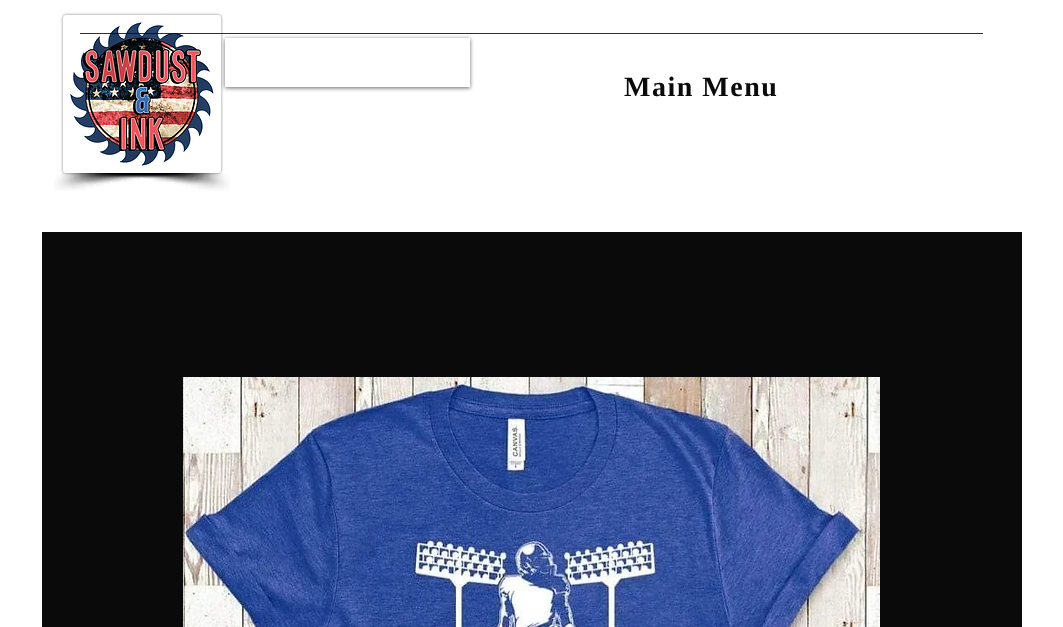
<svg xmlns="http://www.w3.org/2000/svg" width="1063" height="627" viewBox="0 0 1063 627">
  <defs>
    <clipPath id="clip1"><path d="M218 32H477V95H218ZM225 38H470V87H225Z" clip-rule="evenodd"/></clipPath>
  </defs>
  <rect width="100%" height="100%" fill="rgb(255,255,255)"/>
  <rect x="63" y="15" width="158" height="158" rx="3" fill="rgba(0,0,0,0.5)" filter="blur(1.5px)"/>
  <rect x="64" y="16" width="156" height="156" rx="2" fill="rgb(255,255,255)" stroke="rgb(255,255,255)" stroke-width="2"/>
  <image x="70" y="22" width="144" height="144" href="pic1.png"/>
  <image x="54" y="173" width="154" height="18" href="pic2.png"/>
  <image x="96" y="173" width="134" height="18" href="pic3.png"/>
  <g clip-path="url(#clip1)">
    <rect x="225" y="39" width="245" height="49" fill="rgba(0,0,0,0.6)" filter="blur(2px)"/>
  </g>
  <rect x="80" y="33" width="903" height="1" fill="rgba(10,10,10,0.85)"/>
  <text x="624" y="96" font-family="Liberation Serif" font-size="28" font-weight="bold" letter-spacing="1.5" fill="rgb(10,10,10)">Main Menu</text>
  <rect x="42" y="232" width="980" height="395" fill="rgb(10,10,10)"/>
  <image x="183" y="377" width="697" height="250" href="pic4.png"/>
</svg>
